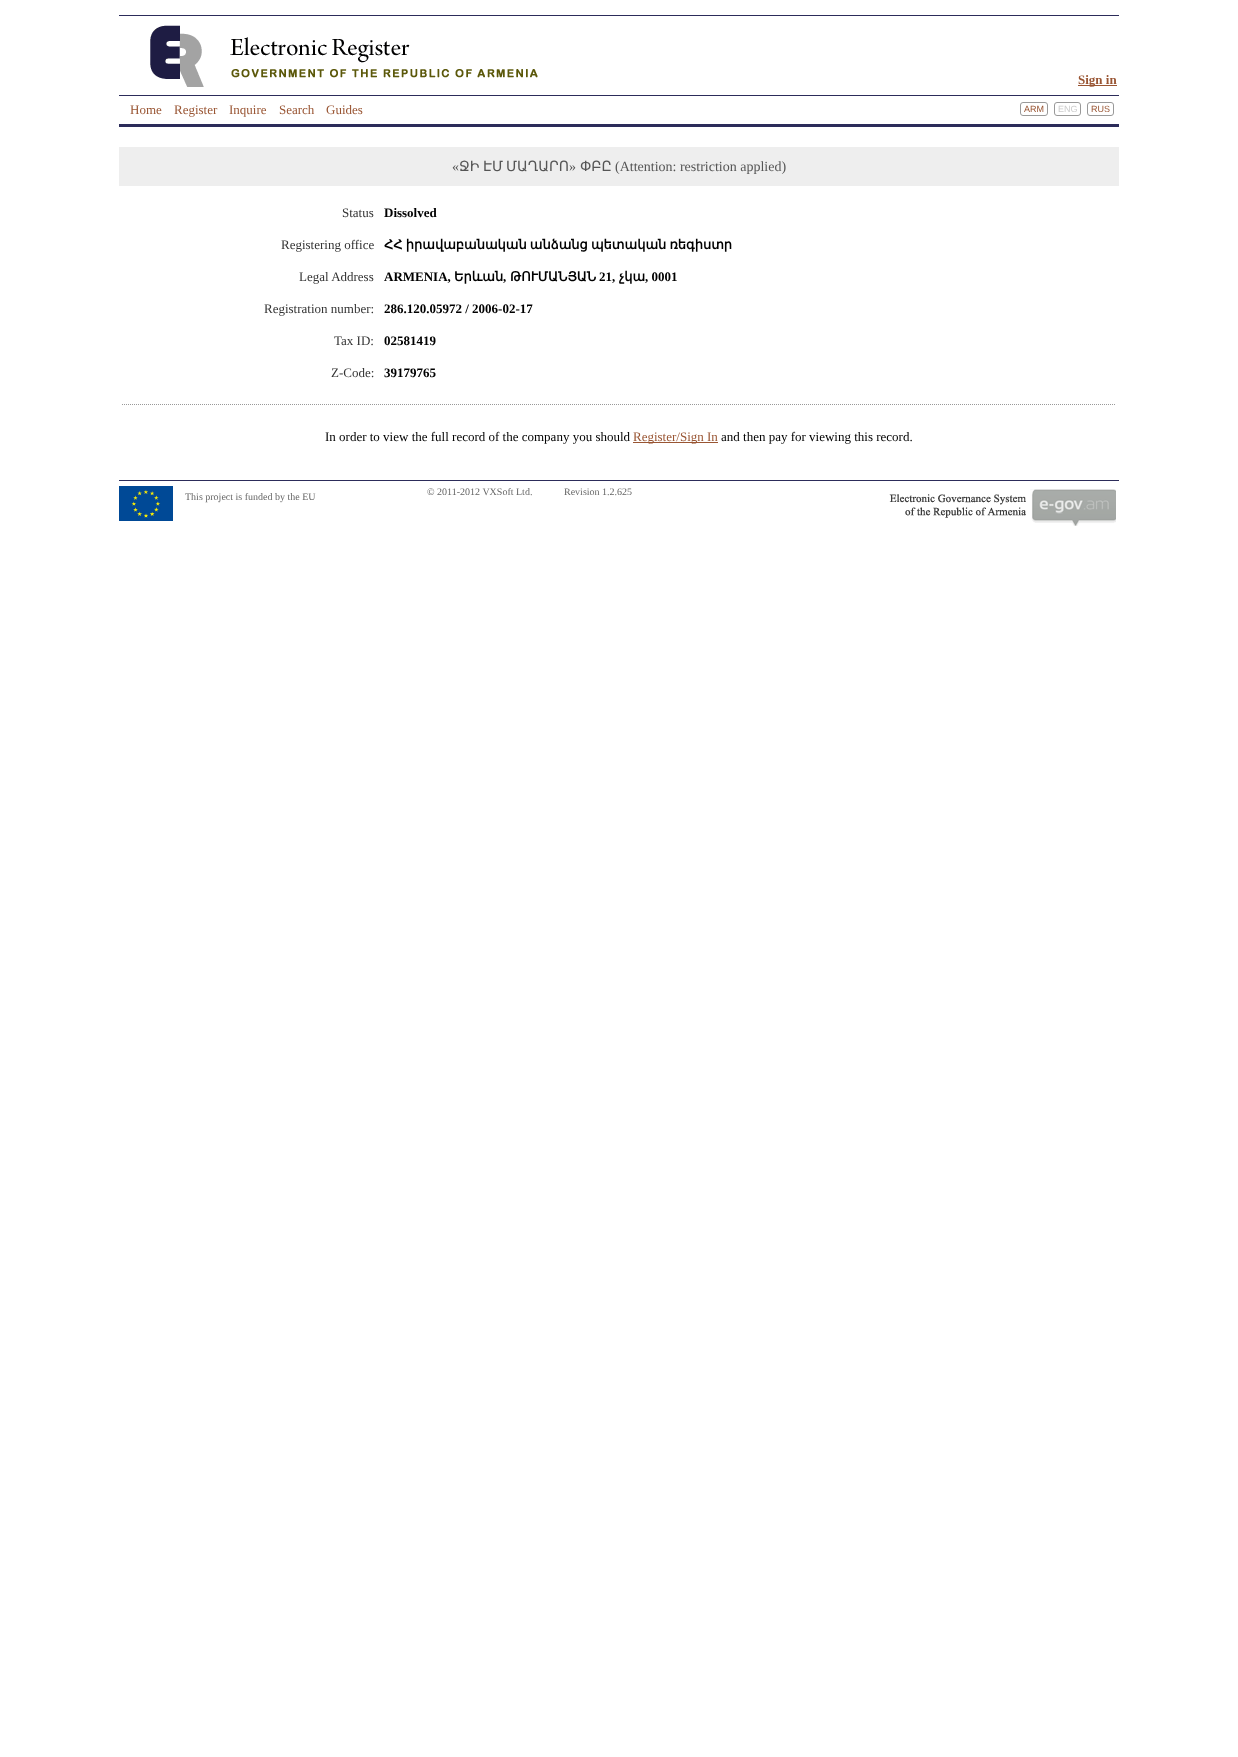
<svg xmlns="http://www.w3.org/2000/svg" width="1238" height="1757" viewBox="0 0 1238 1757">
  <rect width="100%" height="100%" fill="rgb(255,255,255)"/>
  <rect x="119" y="15" width="1000" height="1" fill="rgb(44,44,90)"/>
  <rect x="119" y="95" width="1000" height="1" fill="rgb(44,44,90)"/>
  <image x="150" y="25" width="388" height="62" href="pic1.png"/>
  <rect x="1078" y="85" width="39" height="1" fill="rgb(153,85,51)"/>
  <text x="1078" y="84" font-family="Liberation Serif" font-size="13" font-weight="bold" fill="rgb(153,85,51)">Sign in</text>
  <rect x="119" y="124" width="1000" height="3" fill="rgb(44,44,90)"/>
  <g font-family="Liberation Serif" font-size="13" fill="rgb(153,85,51)">
    <text x="130" y="114">Home</text>
    <text x="174" y="114">Register</text>
    <text x="229" y="114">Inquire</text>
    <text x="279" y="114">Search</text>
    <text x="326" y="114">Guides</text>
  </g>
  <rect x="1020.5" y="102.5" width="27" height="13" rx="2.5" fill="none" stroke="rgb(153,153,153)"/>
  <text x="1024" y="112" font-family="Liberation Sans" font-size="9" fill="rgb(153,85,51)">ARM</text>
  <rect x="1054.5" y="102.5" width="26" height="13" rx="2.5" fill="none" stroke="rgb(153,153,153)"/>
  <text x="1058" y="112" font-family="Liberation Sans" font-size="9" fill="rgb(204,204,204)">ENG</text>
  <rect x="1087.5" y="102.5" width="26" height="13" rx="2.5" fill="none" stroke="rgb(153,153,153)"/>
  <text x="1091" y="112" font-family="Liberation Sans" font-size="9" fill="rgb(153,85,51)">RUS</text>
  <rect x="119" y="147" width="1000" height="39" fill="rgb(238,238,238)"/>
  <text x="452" y="171" font-family="Liberation Serif" font-size="14" fill="rgb(85,85,85)">«</text>
  <g font-family="DejaVu Sans" font-size="14" fill="rgb(85,85,85)">
    <text x="459" y="171">ՋԻ</text>
    <text x="483" y="171">ԷՄ</text>
    <text x="506" y="171">ՄԱՂԱՐՈ</text>
  </g>
  <text x="569" y="171" font-family="Liberation Serif" font-size="14" fill="rgb(85,85,85)">»</text>
  <text x="580" y="171" font-family="DejaVu Sans" font-size="14" fill="rgb(85,85,85)">ՓԲԸ</text>
  <text x="615" y="171" font-family="Liberation Serif" font-size="14" fill="rgb(85,85,85)">(Attention: restriction applied)</text>
  <text x="342" y="217" font-family="Liberation Serif" font-size="13" fill="rgb(51,51,51)">Status</text>
  <text x="384" y="217" font-family="Liberation Serif" font-size="13" font-weight="bold" fill="rgb(0,0,0)">Dissolved</text>
  <text x="281" y="249" font-family="Liberation Serif" font-size="13" fill="rgb(51,51,51)">Registering office</text>
  <text x="384" y="249" word-spacing="-1" font-family="DejaVu Sans" font-size="13" font-weight="bold" fill="rgb(0,0,0)">ՀՀ իրավաբանական անձանց պետական ռեգիստր</text>
  <text x="299" y="281" font-family="Liberation Serif" font-size="13" fill="rgb(51,51,51)">Legal Address</text>
  <text x="384" y="281" font-family="Liberation Serif" font-size="13" font-weight="bold" fill="rgb(0,0,0)">ARMENIA,</text>
  <text x="454" y="281" font-family="DejaVu Sans" font-size="13" font-weight="bold" fill="rgb(0,0,0)">Երևան</text>
  <text x="503" y="281" font-family="Liberation Serif" font-size="13" font-weight="bold" fill="rgb(0,0,0)">,</text>
  <text x="510" y="281" font-family="DejaVu Sans" font-size="13" font-weight="bold" fill="rgb(0,0,0)">ԹՈՒՄԱՆՅԱՆ</text>
  <text x="599" y="281" font-family="Liberation Serif" font-size="13" font-weight="bold" fill="rgb(0,0,0)">21,</text>
  <text x="619" y="281" font-family="DejaVu Sans" font-size="13" font-weight="bold" fill="rgb(0,0,0)">չկա</text>
  <text x="645" y="281" font-family="Liberation Serif" font-size="13" font-weight="bold" fill="rgb(0,0,0)">, 0001</text>
  <text x="264" y="313" font-family="Liberation Serif" font-size="13" fill="rgb(51,51,51)">Registration number:</text>
  <text x="384" y="313" font-family="Liberation Serif" font-size="13" font-weight="bold" fill="rgb(0,0,0)">286.120.05972 / 2006-02-17</text>
  <text x="334" y="345" font-family="Liberation Serif" font-size="13" fill="rgb(51,51,51)">Tax ID:</text>
  <text x="384" y="345" font-family="Liberation Serif" font-size="13" font-weight="bold" fill="rgb(0,0,0)">02581419</text>
  <text x="331" y="377" font-family="Liberation Serif" font-size="13" fill="rgb(51,51,51)">Z-Code:</text>
  <text x="384" y="377" font-family="Liberation Serif" font-size="13" font-weight="bold" fill="rgb(0,0,0)">39179765</text>
  <path d="M122 404.5H1116" fill="none" stroke="rgb(153,153,153)" stroke-dasharray="1 1"/>
  <text x="325" y="441" font-family="Liberation Serif" font-size="13" fill="rgb(0,0,0)">In order to view the full record of the company you should</text>
  <rect x="633" y="442" width="85" height="1" fill="rgb(153,85,51)"/>
  <text x="633" y="441" font-family="Liberation Serif" font-size="13" fill="rgb(153,85,51)">Register/Sign In</text>
  <text x="721" y="441" font-family="Liberation Serif" font-size="13" fill="rgb(0,0,0)">and then pay for viewing this record.</text>
  <rect x="119" y="480" width="1000" height="1" fill="rgb(44,44,90)"/>
  <image x="119" y="486" width="54" height="35" href="pic2.png"/>
  <g font-family="Liberation Serif" font-size="10" fill="rgb(102,102,102)">
    <text x="185" y="500">This project is funded by the EU</text>
    <text x="427" y="495">© 2011-2012 VXSoft Ltd.</text>
    <text x="564" y="495">Revision 1.2.625</text>
  </g>
  <image x="889" y="489" width="227" height="37" href="pic3.png"/>
</svg>
